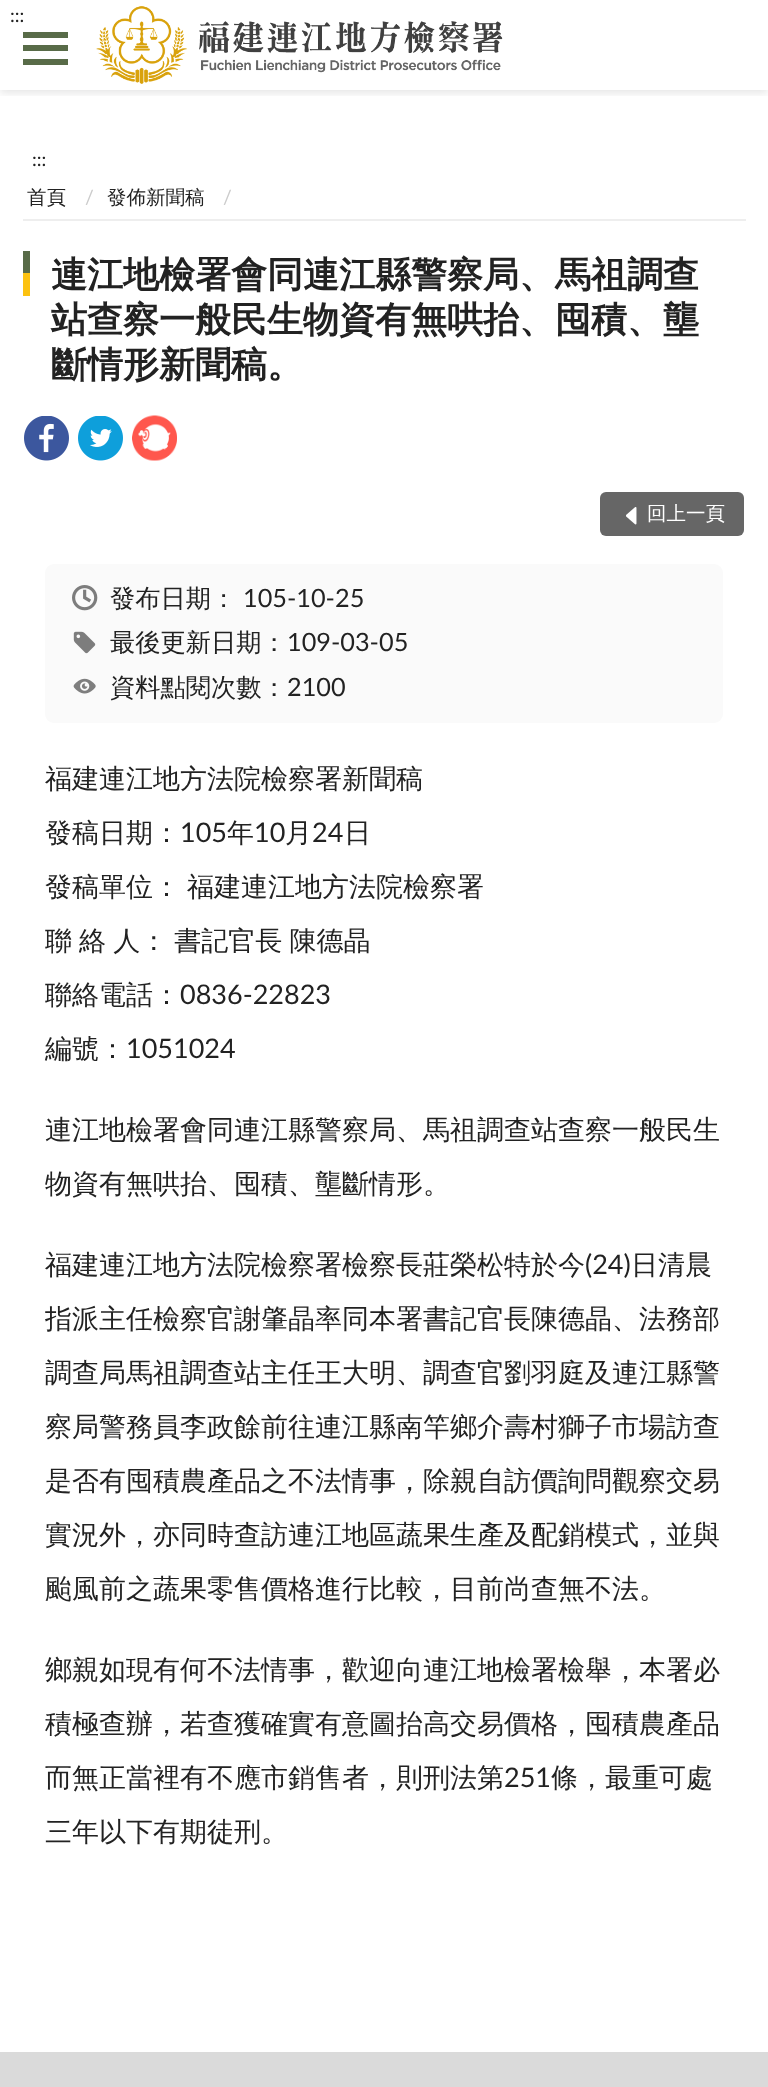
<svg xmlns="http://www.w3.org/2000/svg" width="768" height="2087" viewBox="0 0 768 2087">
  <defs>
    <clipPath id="clip1"><rect x="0" y="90" width="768" height="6"/></clipPath>
  </defs>
  <rect width="100%" height="100%" fill="rgb(255,255,255)"/>
  <g clip-path="url(#clip1)">
    <rect x="0" y="3" width="768" height="90" fill="rgba(0,0,0,0.1)" filter="blur(4px)"/>
  </g>
  <text x="10" y="22" font-family="Lato" font-size="19" fill="rgb(34,34,34)">:::</text>
  <image x="96" y="6" width="407" height="78" href="pic1.png"/>
  <rect x="23" y="32" width="45" height="6" fill="rgb(88,107,72)"/>
  <rect x="23" y="45" width="45" height="6" fill="rgb(88,107,72)"/>
  <rect x="23" y="59" width="45" height="6" fill="rgb(88,107,72)"/>
  <text x="32" y="166" font-family="Lato" font-size="19" fill="rgb(34,34,34)">:::</text>
  <rect x="23" y="219" width="723" height="2" fill="rgb(238,238,238)"/>
  <text x="27" y="204" font-family="WenQuanYi Zen Hei" font-size="19.5" font-weight="500" fill="rgb(34,34,34)">首頁</text>
  <text x="85" y="204" font-family="Lato" font-size="19.5" fill="rgb(204,204,204)">/</text>
  <text x="107" y="204" font-family="WenQuanYi Zen Hei" font-size="19.5" font-weight="500" fill="rgb(34,34,34)">發佈新聞稿</text>
  <text x="223" y="204" font-family="Lato" font-size="19.5" fill="rgb(204,204,204)">/</text>
  <rect x="23" y="251" width="7" height="22" fill="rgb(88,107,72)"/>
  <text x="51" y="287" font-family="WenQuanYi Zen Hei" font-size="36" font-weight="bold" fill="rgb(34,34,34)">連江地檢署會同連江縣警察局、馬祖調查</text>
  <rect x="23" y="273" width="7" height="23" fill="rgb(252,194,17)"/>
  <g font-family="WenQuanYi Zen Hei" font-size="36" font-weight="bold" fill="rgb(34,34,34)">
    <text>
      <tspan x="51" y="332">站查察一般民生物資有無哄抬、囤積、壟</tspan>
      <tspan x="51" y="377">斷情形新聞稿。</tspan>
    </text>
  </g>
  <image x="24" y="416" width="45" height="45" href="pic2.png"/>
  <image x="78" y="416" width="45" height="45" href="pic3.png"/>
  <image x="132" y="415" width="45" height="46" href="pic4.png"/>
  <rect x="600" y="492" width="144" height="44" rx="6" fill="rgb(102,102,102)"/>
  <image x="626" y="507" width="11" height="18" href="pic5.png"/>
  <text x="647" y="520" font-family="WenQuanYi Zen Hei" font-size="19.5" font-weight="500" fill="rgb(255,255,255)">回上一頁</text>
  <rect x="45" y="564" width="678" height="159" rx="9" fill="rgb(250,250,250)"/>
  <image x="72" y="585" width="26" height="26" href="pic6.png"/>
  <text x="110" y="607" font-family="WenQuanYi Zen Hei" font-size="25.25" font-weight="500" fill="rgb(34,34,34)">發布日期：</text>
  <text x="243" y="607" font-family="Lato" font-size="25.25" fill="rgb(34,34,34)">105-10-25</text>
  <image x="73" y="631" width="23" height="23" href="pic7.png"/>
  <text x="110" y="651" font-family="WenQuanYi Zen Hei" font-size="25.25" font-weight="500" fill="rgb(34,34,34)">最後更新日期：</text>
  <text x="287" y="651" font-family="Lato" font-size="25.25" fill="rgb(34,34,34)">109-03-05</text>
  <image x="73" y="678" width="23" height="16" href="pic8.png"/>
  <text x="110" y="696" font-family="WenQuanYi Zen Hei" font-size="25.25" font-weight="500" fill="rgb(34,34,34)">資料點閱次數：</text>
  <text x="287" y="696" font-family="Lato" font-size="25.25" fill="rgb(34,34,34)">2100</text>
  <g font-family="WenQuanYi Zen Hei" font-size="27" font-weight="500" fill="rgb(34,34,34)">
    <text x="45" y="788">福建連江地方法院檢察署新聞稿</text>
    <text x="45" y="842">發稿日期：</text>
  </g>
  <text x="180" y="842" font-family="Lato" font-size="27" fill="rgb(34,34,34)">105</text>
  <text x="227" y="842" font-family="WenQuanYi Zen Hei" font-size="27" font-weight="500" fill="rgb(34,34,34)">年</text>
  <text x="254" y="842" font-family="Lato" font-size="27" fill="rgb(34,34,34)">10</text>
  <text x="285" y="842" font-family="WenQuanYi Zen Hei" font-size="27" font-weight="500" fill="rgb(34,34,34)">月</text>
  <text x="312" y="842" font-family="Lato" font-size="27" fill="rgb(34,34,34)">24</text>
  <g font-family="WenQuanYi Zen Hei" font-size="27" font-weight="500" fill="rgb(34,34,34)">
    <text x="344" y="842">日</text>
    <text x="45" y="896" word-spacing="-1">發稿單位： 福建連江地方法院檢察署</text>
    <text x="45" y="950" word-spacing="-1">聯 絡 人： 書記官長 陳德晶</text>
    <text x="45" y="1004">聯絡電話：</text>
  </g>
  <text x="180" y="1004" font-family="Lato" font-size="27" fill="rgb(34,34,34)">0836-22823</text>
  <text x="45" y="1058" font-family="WenQuanYi Zen Hei" font-size="27" font-weight="500" fill="rgb(34,34,34)">編號：</text>
  <text x="126" y="1058" font-family="Lato" font-size="27" fill="rgb(34,34,34)">1051024</text>
  <g font-family="WenQuanYi Zen Hei" font-size="27" font-weight="500" fill="rgb(34,34,34)">
    <text x="45" y="1139">連江地檢署會同連江縣警察局、馬祖調查站查察一般民生</text>
    <text x="45" y="1193">物資有無哄抬、囤積、壟斷情形。</text>
    <text x="45" y="1274">福建連江地方法院檢察署檢察長莊榮松特於今</text>
  </g>
  <text x="585" y="1274" font-family="Lato" font-size="27" fill="rgb(34,34,34)">(24)</text>
  <g font-family="WenQuanYi Zen Hei" font-size="27" font-weight="500" fill="rgb(34,34,34)">
    <text x="631" y="1274">日清晨</text>
    <text x="45" y="1328">指派主任檢察官謝肇晶率同本署書記官長陳德晶、法務部</text>
    <text x="45" y="1382">調查局馬祖調查站主任王大明、調查官劉羽庭及連江縣警</text>
    <text x="45" y="1436">察局警務員李政餘前往連江縣南竿鄉介壽村獅子市場訪查</text>
    <text x="45" y="1490">是否有囤積農產品之不法情事，除親自訪價詢問觀察交易</text>
    <text x="45" y="1544">實況外，亦同時查訪連江地區蔬果生產及配銷模式，並與</text>
    <text x="45" y="1598">颱風前之蔬果零售價格進行比較，目前尚查無不法。</text>
    <text x="45" y="1679">鄉親如現有何不法情事，歡迎向連江地檢署檢舉，本署必</text>
    <text x="45" y="1733">積極查辦，若查獲確實有意圖抬高交易價格，囤積農產品</text>
    <text x="45" y="1787">而無正當裡有不應市銷售者，則刑法第</text>
  </g>
  <text x="504" y="1787" font-family="Lato" font-size="27" fill="rgb(34,34,34)">251</text>
  <g font-family="WenQuanYi Zen Hei" font-size="27" font-weight="500" fill="rgb(34,34,34)">
    <text x="551" y="1787">條，最重可處</text>
    <text x="45" y="1841">三年以下有期徒刑。</text>
  </g>
  <rect x="0" y="2052" width="768" height="35" fill="rgb(218,218,218)"/>
</svg>
